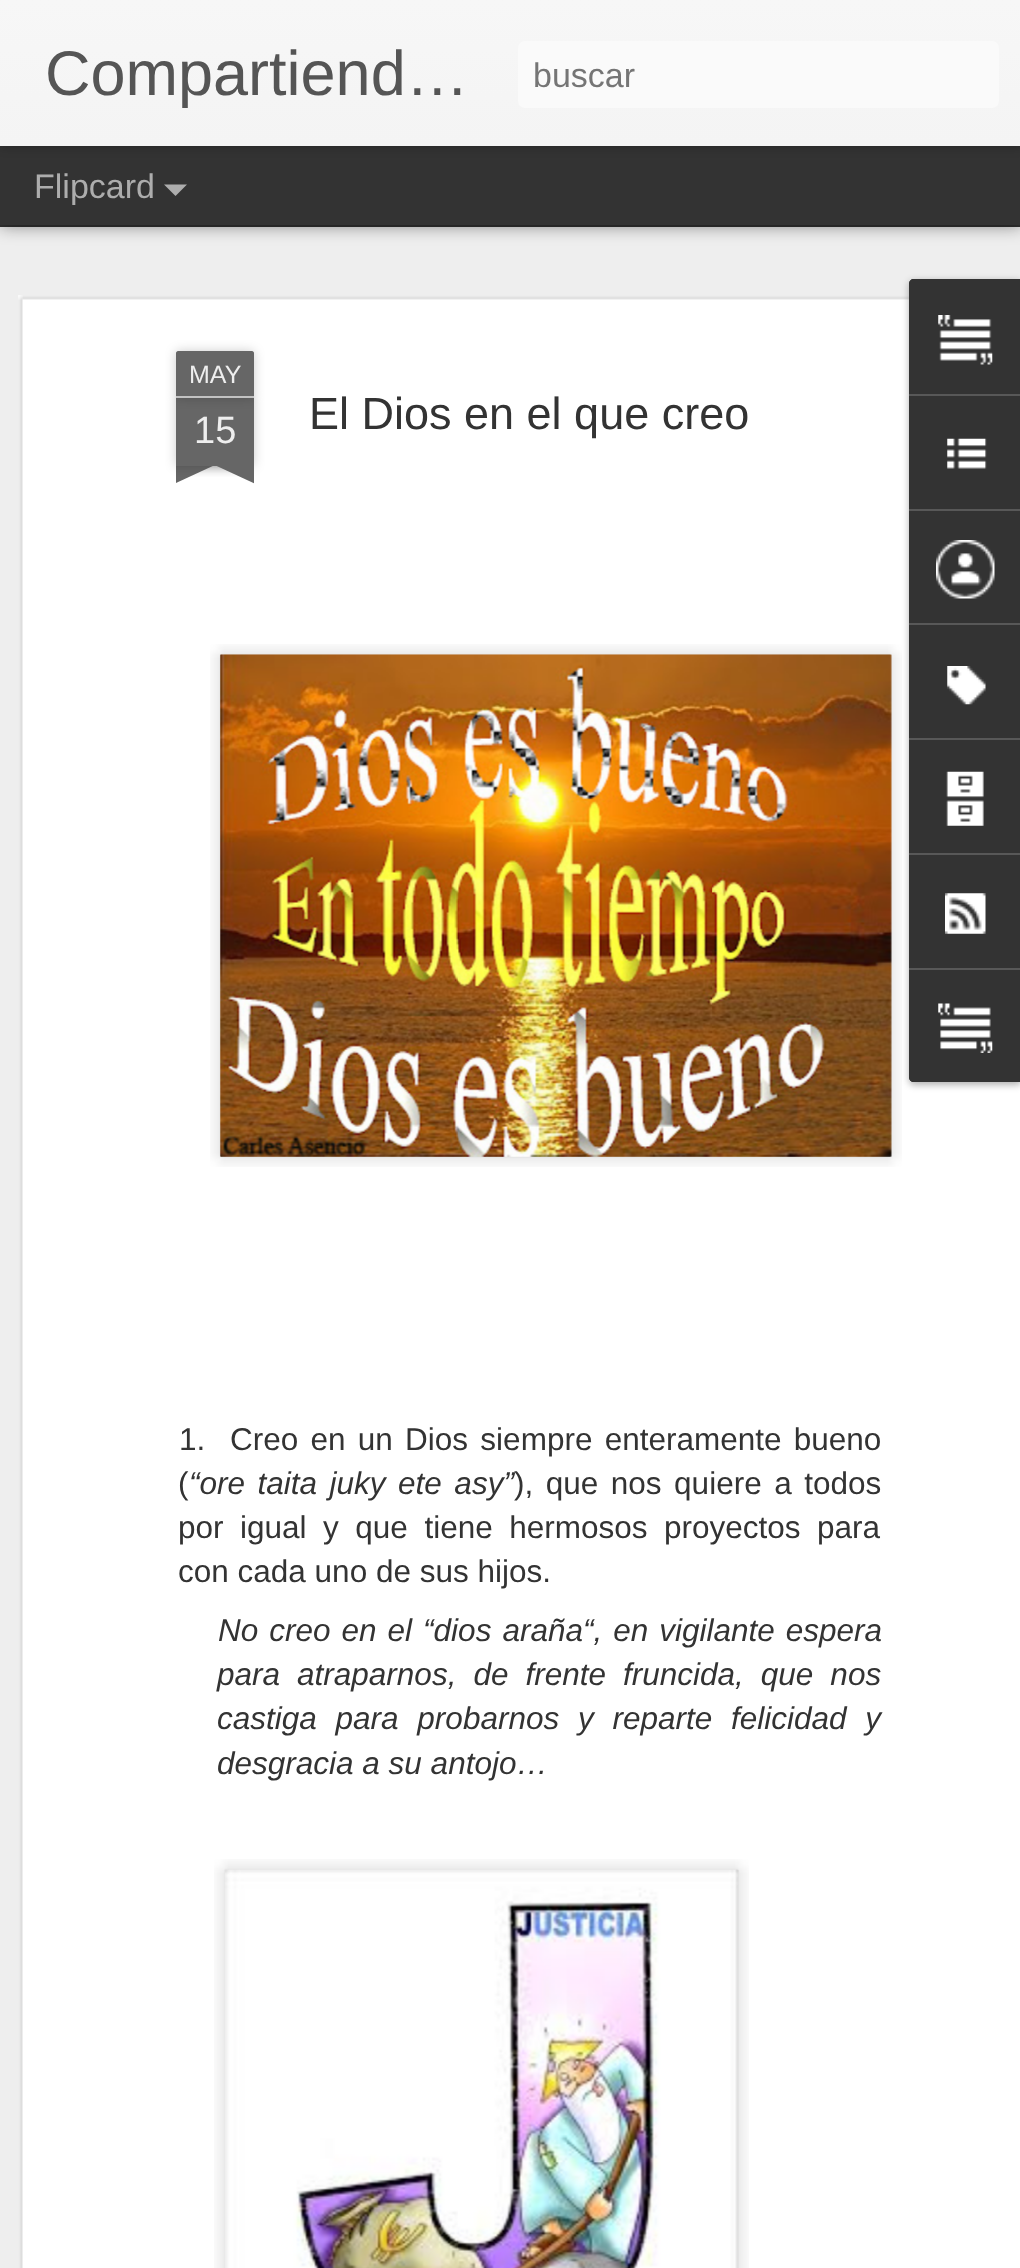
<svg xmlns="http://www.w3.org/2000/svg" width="1020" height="2268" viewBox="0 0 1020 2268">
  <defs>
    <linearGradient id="g1" gradientUnits="userSpaceOnUse" x1="0" y1="0" x2="0" y2="146"><stop offset="0" stop-color="rgb(247,247,247)"/><stop offset="1" stop-color="rgb(244,244,244)"/></linearGradient>
    <clipPath id="clip1"><rect x="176" y="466" width="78" height="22"/></clipPath>
    <clipPath id="clip2"><rect x="176" y="466" width="78" height="22"/></clipPath>
  </defs>
  <rect width="100%" height="100%" fill="rgb(51,51,51)"/>
  <rect x="0" y="227" width="1020" height="2041" fill="rgb(238,238,238)"/>
  <rect x="0" y="146" width="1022" height="79" fill="rgba(0,0,0,0.5)" filter="blur(9px)"/>
  <rect x="0" y="146" width="1020" height="79" fill="rgb(51,51,51)"/>
  <rect x="0" y="0" width="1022" height="146" fill="rgba(0,0,0,0.3)" filter="blur(5.5px)"/>
  <rect x="0" y="0" width="1020" height="146" fill="url(#g1)"/>
  <text x="45" y="95" font-family="Liberation Sans" font-size="63" fill="rgb(85,85,85)">Compartiend…</text>
  <rect x="518" y="41" width="481" height="67" rx="7" fill="rgb(250,250,250)"/>
  <text x="533" y="87" font-family="Liberation Sans" font-size="34" fill="rgb(117,117,117)">buscar</text>
  <text x="34" y="198" font-family="Liberation Sans" font-size="34" fill="rgb(173,173,173)">Flipcard</text>
  <path d="M164 184.5H187L175.5 196Z" fill="rgb(173,173,173)"/>
  <rect x="18" y="295" width="1002" height="1973" fill="rgb(255,255,255)"/>
  <image x="18" y="295" width="891" height="1973" href="pic1.png"/>
  <rect x="176" y="398" width="78" height="68" fill="rgba(0,0,0,0.2)" filter="blur(5.5px)"/>
  <rect x="176" y="398" width="78" height="68" fill="rgb(102,102,102)"/>
  <rect x="176" y="351" width="78" height="47" rx="2" fill="rgba(0,0,0,0.2)" filter="blur(5.5px)"/>
  <path d="M178 351H252C253 351 254 352 254 353V398H176V353C176 352 177 351 178 351Z" fill="rgb(102,102,102)"/>
  <rect x="176" y="396" width="78" height="2" fill="rgb(194,194,194)"/>
  <text x="189" y="383" font-family="Liberation Sans" font-size="25" fill="rgb(238,238,238)">MAY</text>
  <text x="194" y="443" font-family="Liberation Sans" font-size="38" fill="rgb(238,238,238)">15</text>
  <g clip-path="url(#clip1)">
    <rect x="155" y="443" width="113" height="23" fill="rgba(0,0,0,0.2)" filter="blur(5.5px)"/>
  </g>
  <g clip-path="url(#clip2)">
    <path d="M156 468L258 421L267 441L165 488Z" fill="rgb(102,102,102)"/>
  </g>
  <g clip-path="url(#clip1)">
    <rect x="162" y="443" width="113" height="23" fill="rgba(0,0,0,0.2)" filter="blur(5.5px)"/>
  </g>
  <g clip-path="url(#clip2)">
    <path d="M172 421L274 468L264 488L163 441Z" fill="rgb(102,102,102)"/>
  </g>
  <text x="309" y="429" font-family="Liberation Sans" font-size="45" fill="rgb(51,51,51)">El Dios en el que creo</text>
  <image x="210" y="644" width="692" height="523" href="pic2.png"/>
  <image x="220" y="654" width="672" height="503" href="pic3.png"/>
  <g font-family="Liberation Sans" font-size="31.5" fill="rgb(51,51,51)">
    <text x="179" y="1450">1.</text>
    <text x="230" y="1450" word-spacing="3.5">Creo en un Dios siempre enteramente bueno</text>
    <text x="178" y="1494">(</text>
  </g>
  <text x="189" y="1494" word-spacing="3.75" font-family="Liberation Sans" font-size="31.5" font-style="italic" fill="rgb(51,51,51)">“ore taita juky ete asy”</text>
  <g font-family="Liberation Sans" font-size="31.5" fill="rgb(51,51,51)">
    <text x="514" y="1494" word-spacing="3.75">), que nos quiere a todos</text>
    <text>
      <tspan x="178" y="1538" word-spacing="7.75">por igual y que tiene hermosos proyectos para</tspan>
      <tspan x="178" y="1582">con cada uno de sus hijos.</tspan>
    </text>
  </g>
  <g font-family="Liberation Sans" font-size="31.5" font-style="italic" fill="rgb(51,51,51)">
    <text x="218" y="1641" word-spacing="2.25">No creo en el “dios araña“, en vigilante espera</text>
    <text>
      <tspan x="217" y="1685" word-spacing="8.25">para atraparnos, de frente fruncida, que nos</tspan>
      <tspan x="217" y="1729" word-spacing="10">castiga para probarnos y reparte felicidad y</tspan>
      <tspan x="217" y="1774">desgracia a su antojo…</tspan>
    </text>
  </g>
  <image x="214" y="1859" width="535" height="409" href="pic4.png"/>
  <image x="225" y="1870" width="514" height="398" href="pic5.png"/>
  <rect x="909" y="281" width="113" height="804" rx="5" fill="rgba(0,0,0,0.3)" filter="blur(3.5px)"/>
  <path d="M914 279H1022V1082H914C911 1082 909 1080 909 1077V284C909 281 911 279 914 279Z" fill="rgb(51,51,51)"/>
  <path d="M914 279H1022V394H909V284C909 281 911 279 914 279Z" fill="rgb(51,51,51)"/>
  <image x="938" y="315" width="55" height="50" href="pic6.png"/>
  <rect x="909" y="394" width="111" height="2" fill="rgb(88,88,88)"/>
  <image x="947" y="438" width="40" height="31" href="pic7.png"/>
  <rect x="909" y="509" width="111" height="2" fill="rgb(88,88,88)"/>
  <image x="936" y="540" width="59" height="59" href="pic8.png"/>
  <rect x="909" y="623" width="111" height="2" fill="rgb(88,88,88)"/>
  <image x="947" y="666" width="39" height="39" href="pic9.png"/>
  <rect x="909" y="738" width="111" height="2" fill="rgb(88,88,88)"/>
  <image x="946" y="771" width="38" height="55" href="pic10.png"/>
  <rect x="909" y="853" width="111" height="2" fill="rgb(88,88,88)"/>
  <image x="945" y="893" width="41" height="41" href="pic11.png"/>
  <path d="M909 968H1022V1082H914C911 1082 909 1080 909 1077Z" fill="rgb(51,51,51)"/>
  <rect x="909" y="968" width="111" height="2" fill="rgb(88,88,88)"/>
  <image x="938" y="1003" width="55" height="50" href="pic12.png"/>
</svg>
